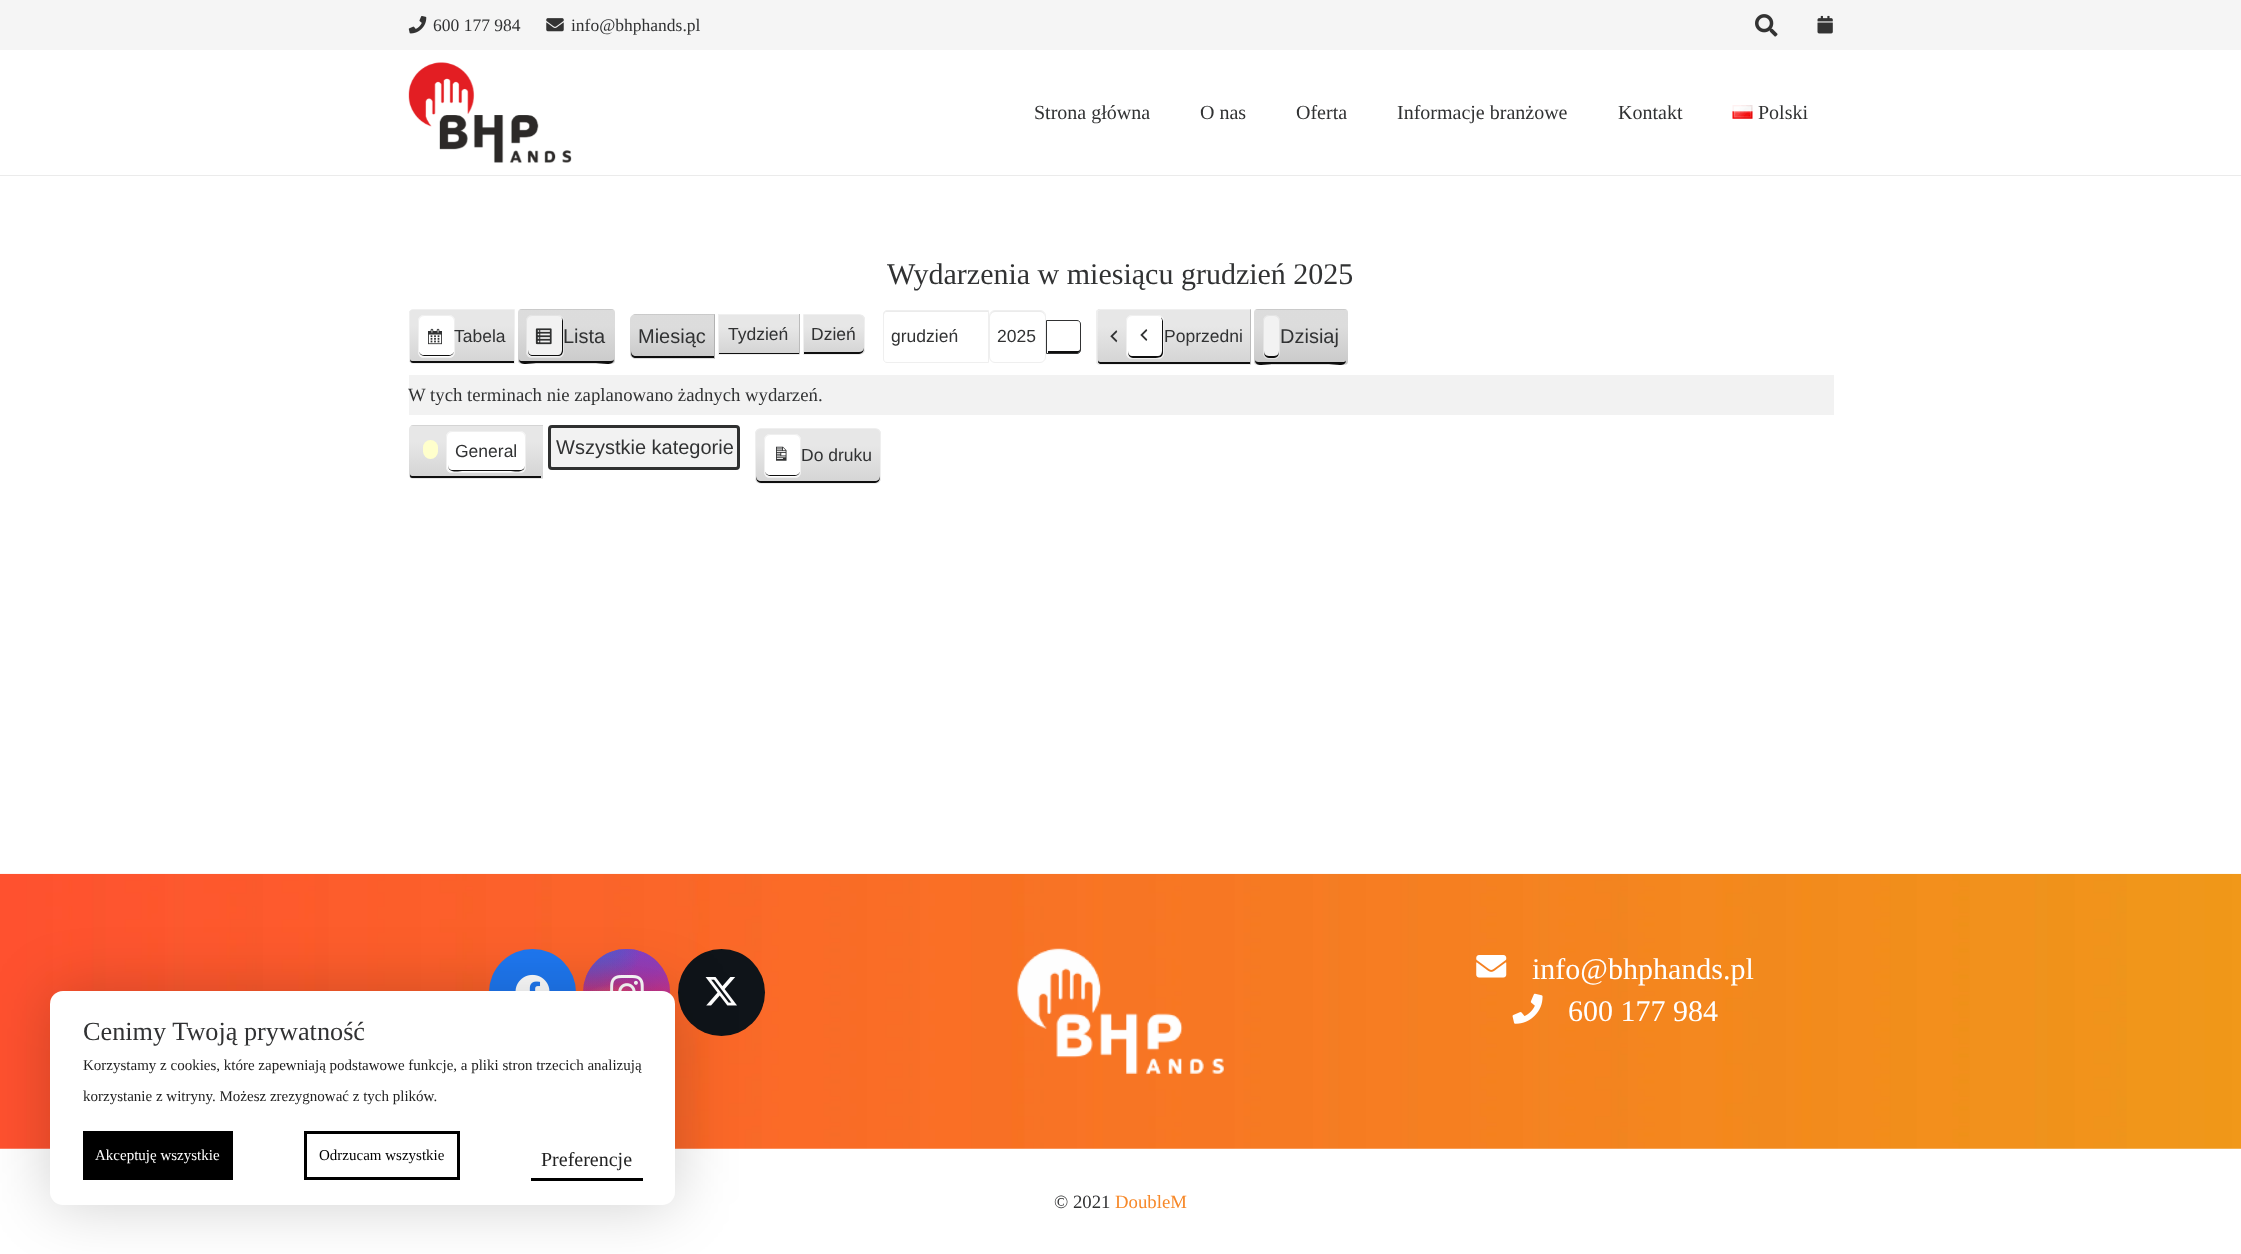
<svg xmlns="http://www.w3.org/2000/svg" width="2241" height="1254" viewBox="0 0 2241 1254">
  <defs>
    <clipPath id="clip1"><path d="M413 309H515V364H413C411 364 409 362 409 360V313C409 311 411 309 413 309Z"/></clipPath>
    <linearGradient id="g1" gradientUnits="userSpaceOnUse" x1="462" y1="363" x2="462" y2="310"><stop offset="0" stop-color="rgb(212,212,212)"/><stop offset="0.7" stop-color="rgb(231,231,231)"/></linearGradient>
    <clipPath id="clip2"><rect x="518" y="309" width="97" height="55" rx="4"/></clipPath>
    <linearGradient id="g2" gradientUnits="userSpaceOnUse" x1="566" y1="310" x2="566" y2="258"><stop offset="0" stop-color="rgb(200,200,200)" stop-opacity="0.95"/><stop offset="0.7" stop-color="rgb(219,219,219)" stop-opacity="0.95"/></linearGradient>
    <linearGradient id="g3" gradientUnits="userSpaceOnUse" x1="566" y1="363" x2="566" y2="310"><stop offset="0" stop-color="rgb(200,200,200)" stop-opacity="0.95"/><stop offset="0.7" stop-color="rgb(219,219,219)" stop-opacity="0.95"/></linearGradient>
    <linearGradient id="g4" gradientUnits="userSpaceOnUse" x1="566" y1="415" x2="566" y2="363"><stop offset="0" stop-color="rgb(200,200,200)" stop-opacity="0.95"/><stop offset="0.7" stop-color="rgb(219,219,219)" stop-opacity="0.95"/></linearGradient>
    <clipPath id="clip3"><path d="M636 314H715V359H636C632.5 359 630 356.5 630 353V320C630 316.5 632.5 314 636 314Z"/></clipPath>
    <linearGradient id="g5" gradientUnits="userSpaceOnUse" x1="673" y1="315" x2="673" y2="273"><stop offset="0" stop-color="rgb(200,200,200)" stop-opacity="0.95"/><stop offset="0.7" stop-color="rgb(219,219,219)" stop-opacity="0.95"/></linearGradient>
    <linearGradient id="g6" gradientUnits="userSpaceOnUse" x1="673" y1="358" x2="673" y2="315"><stop offset="0" stop-color="rgb(200,200,200)" stop-opacity="0.95"/><stop offset="0.7" stop-color="rgb(219,219,219)" stop-opacity="0.95"/></linearGradient>
    <linearGradient id="g7" gradientUnits="userSpaceOnUse" x1="673" y1="400" x2="673" y2="358"><stop offset="0" stop-color="rgb(200,200,200)" stop-opacity="0.95"/><stop offset="0.7" stop-color="rgb(219,219,219)" stop-opacity="0.95"/></linearGradient>
    <linearGradient id="g8" gradientUnits="userSpaceOnUse" x1="759" y1="354" x2="759" y2="315"><stop offset="0" stop-color="rgb(212,212,212)"/><stop offset="0.7" stop-color="rgb(231,231,231)"/></linearGradient>
    <clipPath id="clip4"><path d="M803 314H859C862.5 314 865 316.5 865 320V349C865 352.5 862.5 355 859 355H803Z"/></clipPath>
    <linearGradient id="g9" gradientUnits="userSpaceOnUse" x1="834" y1="354" x2="834" y2="315"><stop offset="0" stop-color="rgb(212,212,212)"/><stop offset="0.7" stop-color="rgb(231,231,231)"/></linearGradient>
    <clipPath id="clip5"><path d="M1100 309H1251V365H1100C1098 365 1096 363 1096 361V313C1096 311 1098 309 1100 309Z"/></clipPath>
    <linearGradient id="g10" gradientUnits="userSpaceOnUse" x1="1174" y1="310" x2="1174" y2="256"><stop offset="0" stop-color="rgb(212,212,212)"/><stop offset="0.7" stop-color="rgb(231,231,231)"/></linearGradient>
    <linearGradient id="g11" gradientUnits="userSpaceOnUse" x1="1174" y1="364" x2="1174" y2="310"><stop offset="0" stop-color="rgb(212,212,212)"/><stop offset="0.7" stop-color="rgb(231,231,231)"/></linearGradient>
    <linearGradient id="g12" gradientUnits="userSpaceOnUse" x1="1174" y1="418" x2="1174" y2="364"><stop offset="0" stop-color="rgb(212,212,212)"/><stop offset="0.7" stop-color="rgb(231,231,231)"/></linearGradient>
    <clipPath id="clip6"><rect x="1254" y="309" width="94" height="56" rx="4"/></clipPath>
    <linearGradient id="g13" gradientUnits="userSpaceOnUse" x1="1301" y1="310" x2="1301" y2="256"><stop offset="0" stop-color="rgb(200,200,200)" stop-opacity="0.95"/><stop offset="0.7" stop-color="rgb(219,219,219)" stop-opacity="0.95"/></linearGradient>
    <linearGradient id="g14" gradientUnits="userSpaceOnUse" x1="1301" y1="364" x2="1301" y2="310"><stop offset="0" stop-color="rgb(200,200,200)" stop-opacity="0.95"/><stop offset="0.7" stop-color="rgb(219,219,219)" stop-opacity="0.95"/></linearGradient>
    <linearGradient id="g15" gradientUnits="userSpaceOnUse" x1="1301" y1="418" x2="1301" y2="364"><stop offset="0" stop-color="rgb(200,200,200)" stop-opacity="0.95"/><stop offset="0.7" stop-color="rgb(219,219,219)" stop-opacity="0.95"/></linearGradient>
    <clipPath id="clip7"><path d="M413 425H543V479H413C411 479 409 477 409 475V429C409 427 411 425 413 425Z"/></clipPath>
    <linearGradient id="g16" gradientUnits="userSpaceOnUse" x1="476" y1="426" x2="476" y2="375"><stop offset="0" stop-color="rgb(212,212,212)"/><stop offset="0.7" stop-color="rgb(231,231,231)"/></linearGradient>
    <linearGradient id="g17" gradientUnits="userSpaceOnUse" x1="476" y1="478" x2="476" y2="426"><stop offset="0" stop-color="rgb(212,212,212)"/><stop offset="0.7" stop-color="rgb(231,231,231)"/></linearGradient>
    <linearGradient id="g18" gradientUnits="userSpaceOnUse" x1="476" y1="529" x2="476" y2="478"><stop offset="0" stop-color="rgb(212,212,212)"/><stop offset="0.7" stop-color="rgb(231,231,231)"/></linearGradient>
    <clipPath id="clip8"><rect x="755" y="428" width="126" height="56" rx="6"/></clipPath>
    <linearGradient id="g19" gradientUnits="userSpaceOnUse" x1="818" y1="483" x2="818" y2="429"><stop offset="0" stop-color="rgb(212,212,212)"/><stop offset="0.7" stop-color="rgb(231,231,231)"/></linearGradient>
    <linearGradient id="g20" gradientUnits="userSpaceOnUse" x1="626" y1="949" x2="626" y2="1036"><stop offset="0" stop-color="rgb(101,89,202)"/><stop offset="0.3" stop-color="rgb(188,49,143)"/><stop offset="0.5" stop-color="rgb(228,46,102)"/><stop offset="0.7" stop-color="rgb(250,83,50)"/><stop offset="1" stop-color="rgb(255,220,128)"/></linearGradient>
    <radialGradient id="g21" gradientUnits="userSpaceOnUse" cx="670" cy="1036" r="124"><stop offset="0" stop-color="rgb(217,49,122)"/><stop offset="1" stop-color="rgb(217,49,122)" stop-opacity="0"/></radialGradient>
    <radialGradient id="g22" gradientUnits="userSpaceOnUse" cx="0" cy="0" r="1" gradientTransform="matrix(74 0 0 148 635 931)"><stop offset="0" stop-color="rgb(137,61,194)"/><stop offset="0.5" stop-color="rgb(137,61,194)" stop-opacity="0"/></radialGradient>
    <radialGradient id="g23" gradientUnits="userSpaceOnUse" cx="670" cy="949" r="124"><stop offset="0" stop-color="rgb(137,61,194)"/><stop offset="0.5" stop-color="rgb(137,61,194)" stop-opacity="0"/></radialGradient>
    <radialGradient id="g24" gradientUnits="userSpaceOnUse" cx="0" cy="0" r="1" gradientTransform="matrix(99 0 0 186 600 905)"><stop offset="0" stop-color="rgb(82,88,207)"/><stop offset="0.5" stop-color="rgb(82,88,207)" stop-opacity="0"/></radialGradient>
    <radialGradient id="g25" gradientUnits="userSpaceOnUse" cx="0" cy="0" r="1" gradientTransform="matrix(124 0 0 155 583 927)"><stop offset="0" stop-color="rgb(82,88,207)"/><stop offset="0.5" stop-color="rgb(82,88,207)" stop-opacity="0"/></radialGradient>
    <radialGradient id="g26" gradientUnits="userSpaceOnUse" cx="613" cy="1036" r="104"><stop offset="0" stop-color="rgb(254,197,100)"/><stop offset="0.5" stop-color="rgb(254,197,100)" stop-opacity="0"/></radialGradient>
  </defs>
  <rect width="100%" height="100%" fill="rgb(255,255,255)"/>
  <rect x="0" y="0" width="2241" height="50" fill="rgb(245,245,245)"/>
  <image x="408" y="16" width="19" height="18" href="pic1.png"/>
  <text x="433" y="31" font-family="Liberation Serif" font-size="17.5" fill="rgb(49,50,51)">600 177 984</text>
  <image x="546" y="18" width="18" height="14" href="pic2.png"/>
  <text x="571" y="31" font-family="Liberation Serif" font-size="17.5" fill="rgb(49,50,51)">info@bhphands.pl</text>
  <image x="1755" y="14" width="23" height="23" href="pic3.png"/>
  <image x="1817" y="15" width="16" height="19" href="pic4.png"/>
  <rect x="0" y="175" width="2241" height="1" fill="rgb(235,235,235)"/>
  <image x="408" y="62" width="164" height="101" href="pic5.png"/>
  <g font-family="Liberation Serif" font-size="20" fill="rgb(49,50,51)">
    <text x="1034" y="119">Strona główna</text>
    <text x="1200" y="119">O nas</text>
    <text x="1296" y="119">Oferta</text>
    <text x="1397" y="119">Informacje branżowe</text>
    <text x="1618" y="119">Kontakt</text>
  </g>
  <image x="1732" y="105" width="21" height="14" href="pic6.png"/>
  <text x="1758" y="119" font-family="Liberation Serif" font-size="20" fill="rgb(49,50,51)">Polski</text>
  <text x="887" y="284" font-family="Liberation Serif" font-size="30" fill="rgb(49,50,51)">Wydarzenia w miesiącu grudzień 2025</text>
  <g clip-path="url(#clip1)">
    <rect x="409" y="310" width="105" height="53" fill="url(#g1)"/>
  </g>
  <path d="M410 359V360C410 362 411 363 412 363H514V361H412C411 361 410 360 410 359Z" fill="rgb(15,15,15)"/>
  <path d="M413 309.5H514.5V363.5H413C411 363.5 409.5 362 409.5 360V313C409.5 311 411 309.5 413 309.5Z" fill="none" stroke="rgb(239,239,239)"/>
  <rect x="418" y="315" width="37" height="43" rx="6" fill="rgb(255,255,255)"/>
  <path d="M419 350C419 356 423 356 428 356H445C450 356 454 356 454 350C454 353 452 355 449 355H424C421 355 419 353 419 350Z" fill="rgb(15,15,15)"/>
  <rect x="418.5" y="315.5" width="36" height="42" rx="5.5" fill="none" stroke="rgb(239,239,239)"/>
  <image x="428" y="328" width="14" height="17" href="pic7.png"/>
  <text x="454" y="342" font-family="Liberation Sans" font-size="17.5" fill="rgb(49,50,51)">Tabela</text>
  <rect x="518" y="309" width="97" height="55" rx="4" fill="rgb(242,242,242)"/>
  <g clip-path="url(#clip2)">
    <rect x="518" y="309" width="97" height="1" fill="url(#g2)"/>
    <rect x="518" y="310" width="97" height="53" fill="url(#g3)"/>
    <rect x="518" y="363" width="97" height="1" fill="url(#g4)"/>
  </g>
  <path d="M519 359C519 367 531 363 536 363H596C602 363 614 367 614 359C614 360 613 361 611 361H521C520 361 519 360 519 359Z" fill="rgb(14,14,14)"/>
  <rect x="526" y="315" width="38" height="43" rx="6" fill="rgb(242,242,242)"/>
  <path d="M528 350V351C528 354 530 356 533 356H558C561 356 563 354 563 351V321C563 319.5 562.5 318 561.5 317.5C562 318 562 319 562 320V350C562 353 560 355 558 355H532C530 355 528 353 528 350Z" fill="rgb(14,14,14)"/>
  <rect x="526.5" y="315.5" width="37" height="42" rx="5.5" fill="none" stroke="rgb(227,227,227)"/>
  <image x="535" y="328" width="17" height="17" href="pic8.png"/>
  <text x="563" y="343" font-family="Liberation Sans" font-size="20" fill="rgb(49,50,51)">Lista</text>
  <path d="M636 314H715V359H636C632.5 359 630 356.5 630 353V320C630 316.5 632.5 314 636 314Z" fill="rgb(242,242,242)"/>
  <g clip-path="url(#clip3)">
    <rect x="630" y="314" width="85" height="1" fill="url(#g5)"/>
    <rect x="630" y="315" width="84" height="43" fill="url(#g6)"/>
    <rect x="630" y="358" width="85" height="1" fill="url(#g7)"/>
  </g>
  <path d="M631 351V353C631 356 633 358 636 358H714V356H636C633 356 631 354 631 351Z" fill="rgb(14,14,14)"/>
  <path d="M715 359V314L714 315V358Z" fill="rgb(178,178,178)"/>
  <text x="638" y="343" font-family="Liberation Sans" font-size="20" fill="rgb(49,50,51)">Miesiąc</text>
  <rect x="719" y="315" width="80" height="38" fill="url(#g8)"/>
  <rect x="719" y="353" width="80" height="1" fill="rgb(15,15,15)"/>
  <rect x="718" y="314" width="82" height="1" fill="rgb(239,239,239)"/>
  <rect x="799" y="314" width="1" height="41" fill="rgb(187,187,187)"/>
  <rect x="718" y="354" width="82" height="1" fill="rgb(239,239,239)"/>
  <rect x="718" y="314" width="1" height="41" fill="rgb(239,239,239)"/>
  <text x="728" y="340" font-family="Liberation Sans" font-size="17.5" fill="rgb(49,50,51)">Tydzień</text>
  <g clip-path="url(#clip4)">
    <rect x="804" y="315" width="61" height="39" fill="url(#g9)"/>
  </g>
  <path d="M804 352V354H859C862 354 864 352 864 349V348C864 350 862 352 859 352Z" fill="rgb(15,15,15)"/>
  <path d="M803.5 314.5H859C862 314.5 864.5 317 864.5 320V349C864.5 352 862 354.5 859 354.5H803.5Z" fill="none" stroke="rgb(239,239,239)"/>
  <text x="811" y="340" font-family="Liberation Sans" font-size="17.5" fill="rgb(49,50,51)">Dzień</text>
  <path d="M886 312H988V311H886C885 311 884 312 884 314V315C884 314 885 312 886 312Z" fill="rgb(235,235,235)"/>
  <path d="M887 310.5H988.5V362.5H887C885 362.5 883.5 361 883.5 359V314C883.5 312 885 310.5 887 310.5Z" fill="none" stroke="rgb(239,239,239)"/>
  <text x="891" y="342" font-family="Liberation Sans" font-size="17.5" fill="rgb(49,50,51)">grudzień</text>
  <path d="M995 312H1040C1043 312 1045 315 1045 318C1045 309 1040 311 1032 311H1002C995 311 990 309 990 318C990 315 992 312 995 312Z" fill="rgb(235,235,235)"/>
  <rect x="989.5" y="310.5" width="56" height="52" rx="5.5" fill="none" stroke="rgb(239,239,239)"/>
  <text x="997" y="342" font-family="Liberation Sans" font-size="17.5" fill="rgb(49,50,51)">2025</text>
  <path d="M1048 351V353H1077.5C1079 353 1080 352 1080 350.5V349C1080 350 1079 351 1078 351Z" fill="rgb(15,15,15)"/>
  <path d="M1046.5 320.5H1077C1079 320.5 1080.5 322 1080.5 324V350C1080.5 352 1079 353.5 1077 353.5H1046.5Z" fill="none" stroke="rgb(49,50,51)"/>
  <g clip-path="url(#clip5)">
    <rect x="1096" y="309" width="155" height="1" fill="url(#g10)"/>
    <rect x="1096" y="310" width="154" height="54" fill="url(#g11)"/>
    <rect x="1096" y="364" width="155" height="1" fill="url(#g12)"/>
  </g>
  <path d="M1098 360C1098 362 1098 364 1100 364H1250V362H1100C1099 362 1098 361 1098 360Z" fill="rgb(15,15,15)"/>
  <path d="M1100 309L1097 310L1098 311L1100 310H1250L1251 309Z" fill="rgb(239,239,239)"/>
  <path d="M1251 365V309L1250 310V364Z" fill="rgb(187,187,187)"/>
  <path d="M1100 365H1251L1250 364H1100L1098 363L1097 364Z" fill="rgb(239,239,239)"/>
  <path d="M1096 311L1097 310L1098 311C1098 311 1097 361 1098 363L1097 364L1096 362Z" fill="rgb(239,239,239)"/>
  <image x="1110" y="330" width="8" height="13" href="pic9.png"/>
  <rect x="1126" y="315" width="38" height="44" rx="6" fill="rgb(255,255,255)"/>
  <path d="M1128 351C1128 358 1131 358 1137 358H1146C1167 358 1163 359 1163 337V326C1163 324 1164 320 1161 317L1162 320V351C1162 354 1160 356 1158 356H1132C1130 356 1128 354 1128 351Z" fill="rgb(15,15,15)"/>
  <rect x="1126.5" y="315.5" width="37" height="43" rx="5.5" fill="none" stroke="rgb(239,239,239)"/>
  <image x="1140" y="329" width="8" height="12" href="pic10.png"/>
  <text x="1164" y="342" font-family="Liberation Sans" font-size="17.5" fill="rgb(49,50,51)">Poprzedni</text>
  <rect x="1254" y="309" width="94" height="56" rx="4" fill="rgb(242,242,242)"/>
  <g clip-path="url(#clip6)">
    <rect x="1254" y="309" width="94" height="1" fill="url(#g13)"/>
    <rect x="1254" y="310" width="94" height="54" fill="url(#g14)"/>
    <rect x="1254" y="364" width="94" height="1" fill="url(#g15)"/>
  </g>
  <path d="M1255 360C1255 368 1266 364 1272 364H1329C1335 364 1346 368 1346 360V361L1344 362H1258C1257 362 1255 361 1255 360Z" fill="rgb(14,14,14)"/>
  <rect x="1263" y="315" width="17" height="44" rx="6" fill="rgb(242,242,242)"/>
  <path d="M1264 351V353C1264 356 1266 358 1269 358H1274C1277 358 1279 356 1279 353V351C1279 356 1275 356 1271.5 356C1268 356 1264 356 1264 351Z" fill="rgb(14,14,14)"/>
  <rect x="1263.5" y="315.5" width="16" height="43" rx="5.5" fill="none" stroke="rgb(227,227,227)"/>
  <text x="1280" y="343" font-family="Liberation Sans" font-size="20" fill="rgb(49,50,51)">Dzisiaj</text>
  <rect x="409" y="375" width="1425" height="40" fill="rgb(242,242,242)"/>
  <text x="408" y="401" font-family="Liberation Serif" font-size="18.75" fill="rgb(49,50,51)">W tych terminach nie zaplanowano żadnych wydarzeń.</text>
  <g clip-path="url(#clip7)">
    <rect x="409" y="425" width="134" height="1" fill="url(#g16)"/>
    <rect x="409" y="426" width="134" height="52" fill="url(#g17)"/>
    <rect x="409" y="478" width="134" height="1" fill="url(#g18)"/>
  </g>
  <path d="M410 474V476C410 477 411 478 412 478H541V476H412C411 476 410 475 410 474Z" fill="rgb(15,15,15)"/>
  <rect x="423" y="440" width="15" height="19" rx="7.5" fill="rgb(255,255,204)"/>
  <rect x="446" y="431" width="80" height="42" rx="6" fill="rgb(255,255,255)"/>
  <path d="M448 465C448 474 458 471 464 471H509C515 471 525 474 525 465C525 468 523 470 520 470H452C450 470 448 468 448 465Z" fill="rgb(15,15,15)"/>
  <rect x="446.5" y="431.5" width="79" height="41" rx="5.5" fill="none" stroke="rgb(239,239,239)"/>
  <text x="455" y="457" font-family="Liberation Sans" font-size="17.5" fill="rgb(49,50,51)">General</text>
  <rect x="548" y="425" width="192" height="45" rx="4" fill="rgb(242,242,242)"/>
  <rect x="549.5" y="426.5" width="189" height="42" rx="2.5" fill="none" stroke="rgb(47,48,48)" stroke-width="3"/>
  <text x="556" y="454" font-family="Liberation Sans" font-size="20" fill="rgb(49,50,51)">Wszystkie kategorie</text>
  <g clip-path="url(#clip8)">
    <rect x="755" y="429" width="126" height="54" fill="url(#g19)"/>
  </g>
  <path d="M756 476V478C756 481 758 483 761 483H875C878 483 880 481 880 478V476C880 479 878 481 875 481H761C758 481 756 479 756 476Z" fill="rgb(15,15,15)"/>
  <rect x="755.5" y="428.5" width="125" height="55" rx="5.5" fill="none" stroke="rgb(239,239,239)"/>
  <rect x="764" y="434" width="37" height="44" rx="6" fill="rgb(255,255,255)"/>
  <path d="M765 470C765 476 769 476 774 476H791C796 476 800 476 800 470C800 473 798 475 795 475H770C767 475 765 473 765 470Z" fill="rgb(15,15,15)"/>
  <rect x="764.5" y="434.5" width="36" height="43" rx="5.5" fill="none" stroke="rgb(239,239,239)"/>
  <image x="776" y="446" width="11" height="15" href="pic11.png"/>
  <text x="801" y="461" font-family="Liberation Sans" font-size="17.5" fill="rgb(49,50,51)">Do druku</text>
  <image x="0" y="873" width="2241" height="276" href="pic12.png"/>
  <circle cx="532.5" cy="992.5" r="43.5" fill="rgb(30,119,240)"/>
  <image x="515" y="974" width="35" height="17" href="pic13.png"/>
  <circle cx="626.5" cy="992.5" r="43.5" fill="url(#g20)"/>
  <circle cx="626.5" cy="992.5" r="43.5" fill="url(#g21)"/>
  <circle cx="626.5" cy="992.5" r="43.5" fill="url(#g22)"/>
  <circle cx="626.5" cy="992.5" r="43.5" fill="url(#g23)"/>
  <circle cx="626.5" cy="992.5" r="43.5" fill="url(#g24)"/>
  <circle cx="626.5" cy="992.5" r="43.5" fill="url(#g25)"/>
  <rect x="590" y="985" width="46" height="6" fill="url(#g26)"/>
  <image x="610" y="975" width="34" height="16" href="pic14.png"/>
  <circle cx="721.5" cy="992.5" r="43.5" fill="rgb(15,20,25)"/>
  <image x="705" y="977" width="32" height="29" href="pic15.png"/>
  <rect x="50" y="991" width="625" height="214" rx="13" fill="rgba(0,0,0,0.19)" filter="blur(31px)"/>
  <rect x="50" y="991" width="625" height="214" rx="13" fill="rgb(255,255,255)"/>
  <text x="83" y="1040" font-family="Liberation Serif" font-size="26.25" fill="rgb(49,50,51)">Cenimy Twoją prywatność</text>
  <g font-family="Liberation Serif" font-size="15" fill="rgb(34,34,34)">
    <text x="83" y="1070">Korzystamy z cookies, które zapewniają podstawowe funkcje, a pliki stron trzecich analizują</text>
    <text x="83" y="1101">korzystanie z witryny. Możesz zrezygnować z tych plików.</text>
  </g>
  <rect x="83" y="1131" width="150" height="49" fill="rgb(0,0,0)"/>
  <text x="95" y="1160" font-family="Liberation Serif" font-size="15" fill="rgb(255,255,255)">Akceptuję wszystkie</text>
  <rect x="305.5" y="1132.5" width="153" height="46" fill="none" stroke="rgb(0,0,0)" stroke-width="3"/>
  <text x="319" y="1160" font-family="Liberation Serif" font-size="15" fill="rgb(0,0,0)">Odrzucam wszystkie</text>
  <rect x="531" y="1178" width="112" height="3" fill="rgb(0,0,0)"/>
  <text x="541" y="1166" font-family="Liberation Serif" font-size="20" fill="rgb(34,34,34)">Preferencje</text>
  <image x="1017" y="948" width="207" height="126" href="pic16.png"/>
  <image x="1476" y="955" width="31" height="23" href="pic17.png"/>
  <text x="1532" y="979" font-family="Liberation Serif" font-size="30" fill="rgb(255,255,255)">info@bhphands.pl</text>
  <image x="1512" y="993" width="31" height="31" href="pic18.png"/>
  <text x="1568" y="1021" font-family="Liberation Serif" font-size="30" fill="rgb(255,255,255)">600 177 984</text>
  <text x="1054" y="1208" font-family="Liberation Serif" font-size="18.75" fill="rgb(49,50,51)">© 2021</text>
  <text x="1115" y="1208" font-family="Liberation Serif" font-size="18.75" fill="rgb(247,137,42)">DoubleM</text>
</svg>
